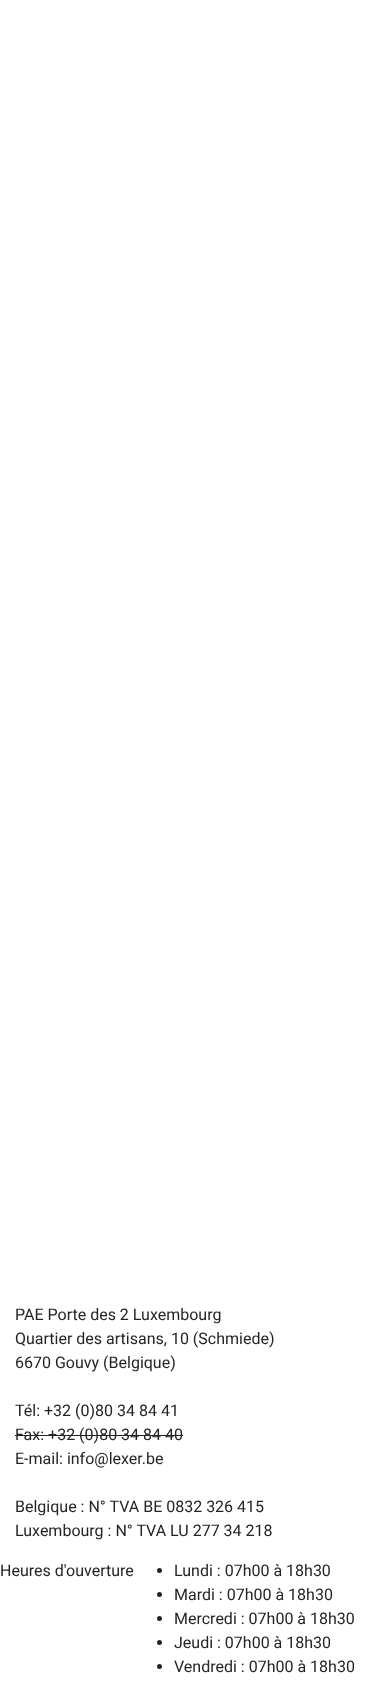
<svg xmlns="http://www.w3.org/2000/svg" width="387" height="1683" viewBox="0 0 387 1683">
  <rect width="100%" height="100%" fill="rgb(255,255,255)"/>
  <g font-family="Roboto" font-size="16" fill="rgb(33,37,41)">
    <text>
      <tspan x="15" y="1320">PAE Porte des 2 Luxembourg</tspan>
      <tspan x="15" y="1344">Quartier des artisans, 10 (Schmiede)</tspan>
      <tspan x="15" y="1368">6670 Gouvy (Belgique)</tspan>
    </text>
    <text>
      <tspan x="15" y="1416">Tél: +32 (0)80 34 84 41</tspan>
      <tspan x="15" y="1440">Fax: +32 (0)80 34 84 40</tspan>
    </text>
  </g>
  <rect x="15" y="1435" width="168" height="1" fill="rgb(33,37,41)"/>
  <g font-family="Roboto" font-size="16" fill="rgb(33,37,41)">
    <text x="15" y="1464">E-mail: info@lexer.be</text>
    <text>
      <tspan x="15" y="1512">Belgique : N° TVA BE 0832 326 415</tspan>
      <tspan x="15" y="1536">Luxembourg : N° TVA LU 277 34 218</tspan>
    </text>
    <text x="0" y="1576">Heures d'ouverture</text>
  </g>
  <circle cx="159.5" cy="1570.5" r="2.5" fill="rgb(33,37,41)"/>
  <text x="174" y="1576" font-family="Roboto" font-size="16" fill="rgb(33,37,41)">Lundi : 07h00 à 18h30</text>
  <circle cx="159.5" cy="1594.5" r="2.5" fill="rgb(33,37,41)"/>
  <text x="174" y="1600" font-family="Roboto" font-size="16" fill="rgb(33,37,41)">Mardi : 07h00 à 18h30</text>
  <circle cx="159.5" cy="1618.5" r="2.5" fill="rgb(33,37,41)"/>
  <text x="174" y="1624" font-family="Roboto" font-size="16" fill="rgb(33,37,41)">Mercredi : 07h00 à 18h30</text>
  <circle cx="159.5" cy="1642.5" r="2.5" fill="rgb(33,37,41)"/>
  <text x="174" y="1648" font-family="Roboto" font-size="16" fill="rgb(33,37,41)">Jeudi : 07h00 à 18h30</text>
  <circle cx="159.5" cy="1666.5" r="2.5" fill="rgb(33,37,41)"/>
  <text x="174" y="1672" font-family="Roboto" font-size="16" fill="rgb(33,37,41)">Vendredi : 07h00 à 18h30</text>
</svg>
